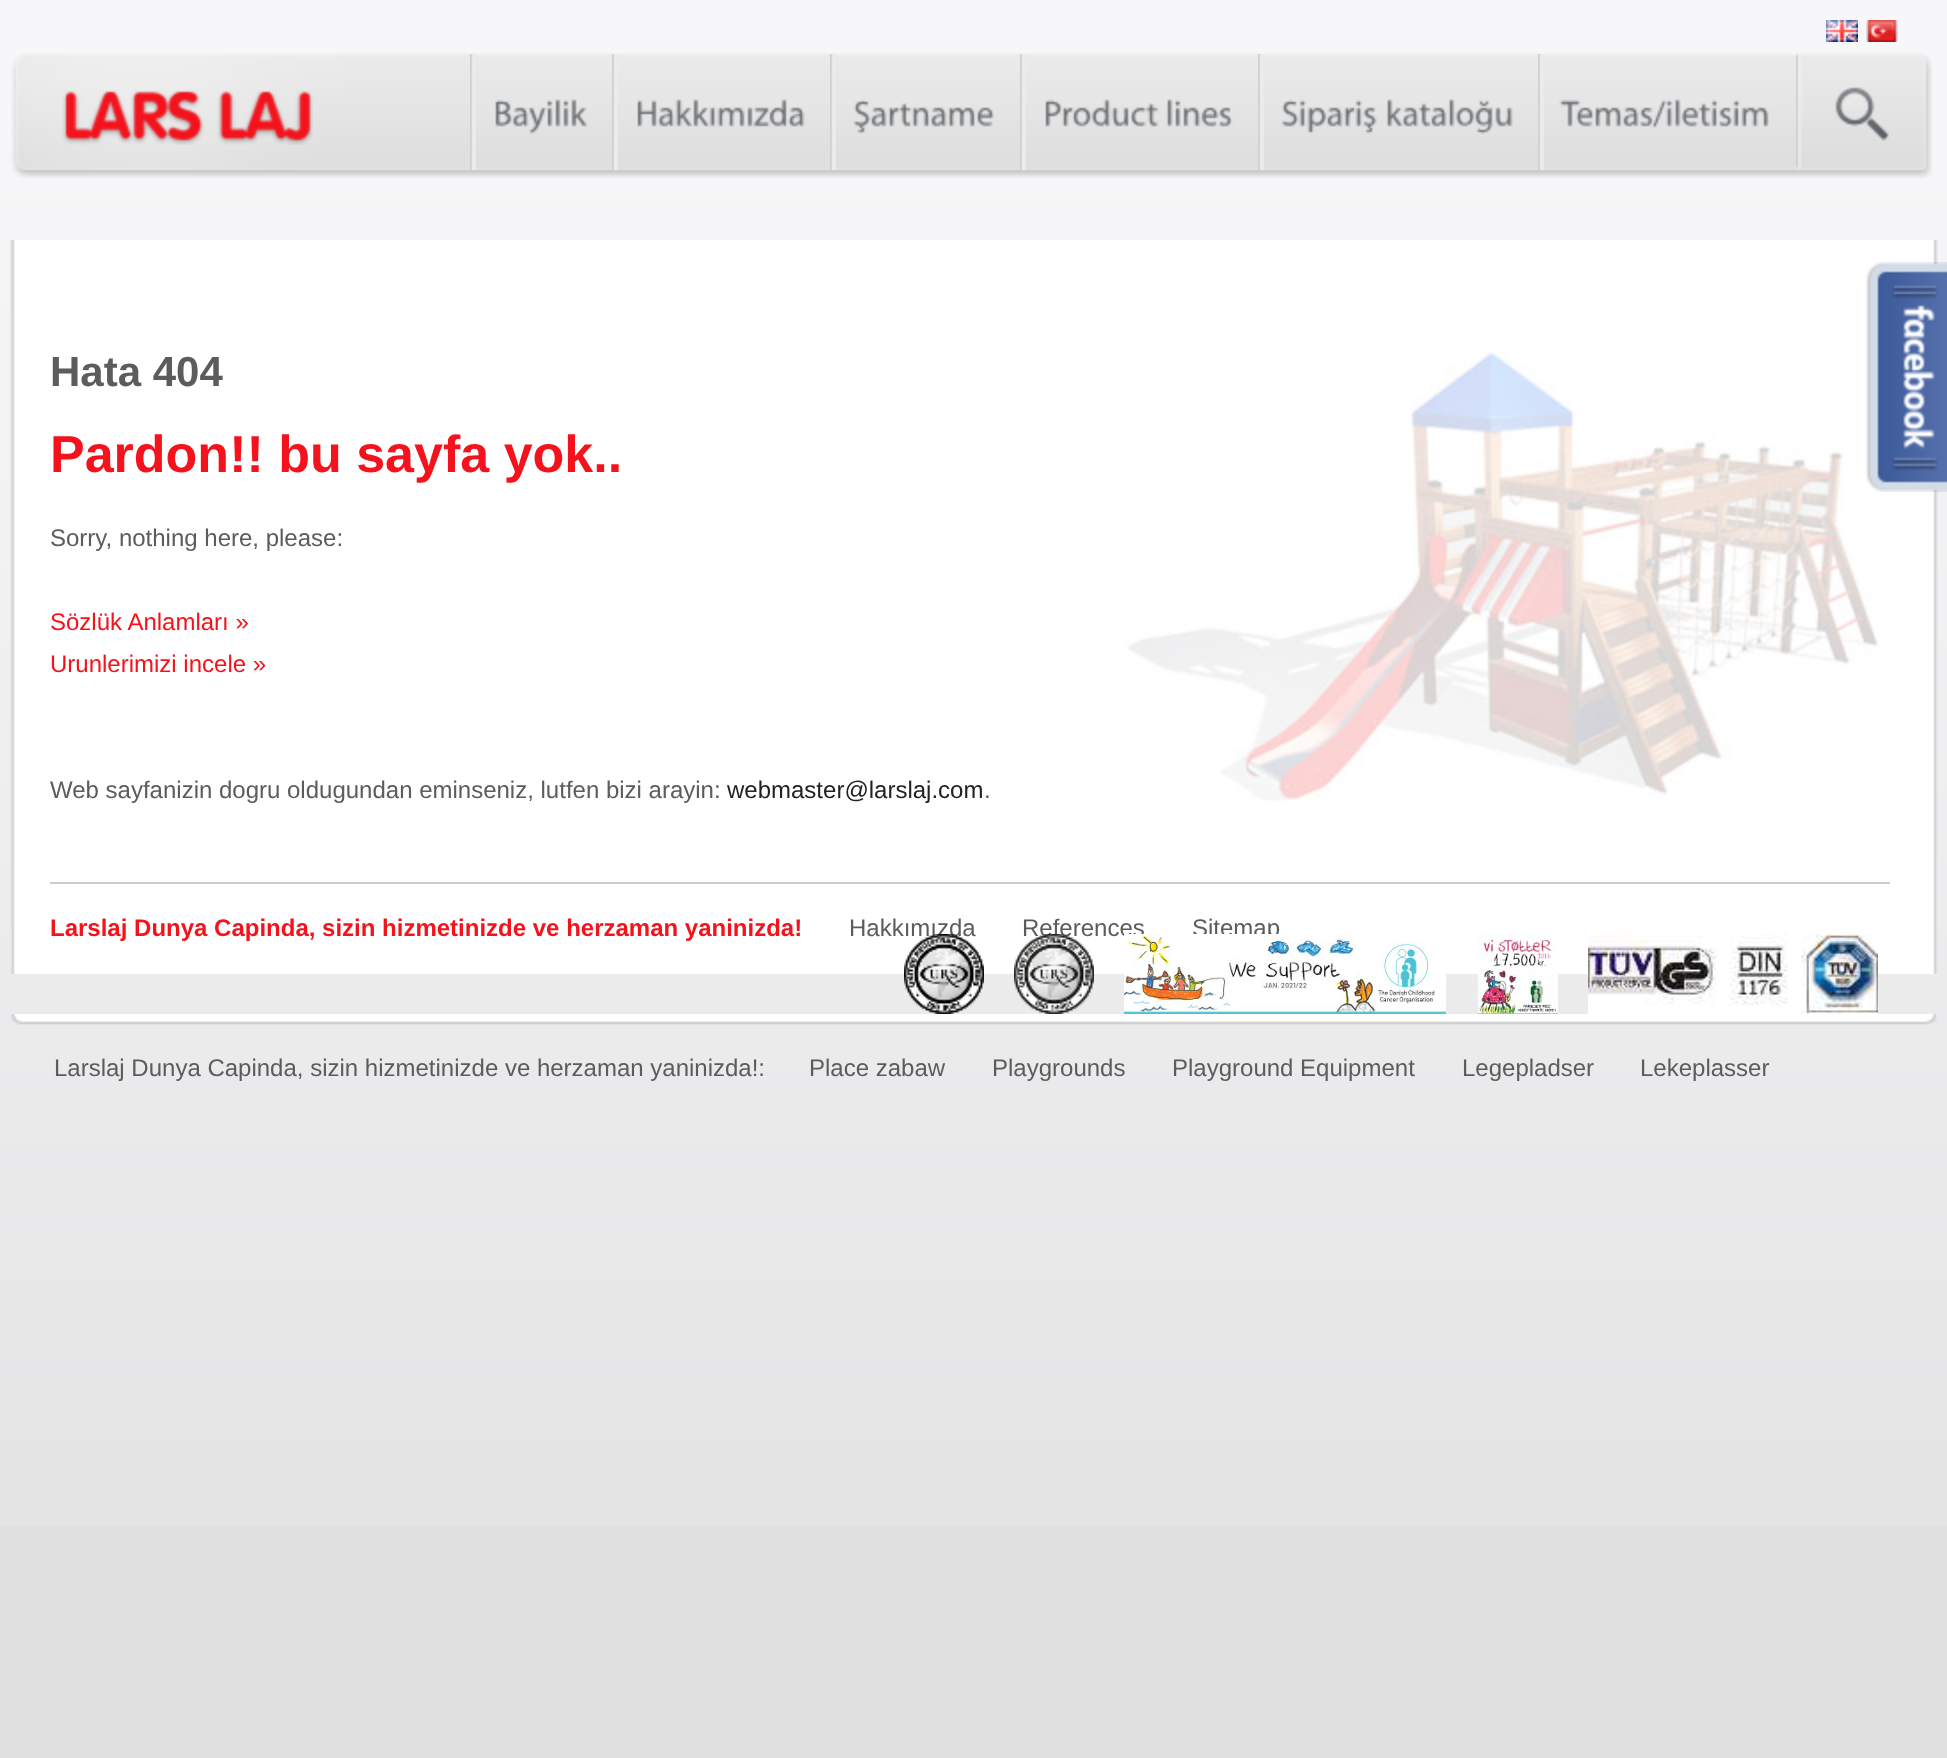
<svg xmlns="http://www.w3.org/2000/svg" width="1947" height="1758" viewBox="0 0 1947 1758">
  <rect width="100%" height="100%" fill="rgb(225,225,225)"/>
  <image x="0" y="0" width="1947" height="1526" href="pic1.png"/>
  <image x="1826" y="20" width="32" height="22" href="pic2.png"/>
  <image x="1866" y="20" width="32" height="22" href="pic3.png"/>
  <image x="11" y="53" width="335" height="125" href="pic4.png"/>
  <image x="62" y="90" width="251" height="55" href="pic5.png"/>
  <image x="346" y="53" width="1450" height="125" href="pic6.png"/>
  <image x="470" y="54" width="6" height="116" href="pic7.png"/>
  <image x="495" y="99" width="93" height="35" href="pic8.png"/>
  <image x="612" y="54" width="6" height="116" href="pic7.png"/>
  <image x="637" y="99" width="168" height="28" href="pic9.png"/>
  <image x="830" y="54" width="6" height="116" href="pic7.png"/>
  <image x="853" y="99" width="142" height="35" href="pic10.png"/>
  <image x="1020" y="54" width="6" height="116" href="pic7.png"/>
  <image x="1045" y="99" width="114" height="28" href="pic11.png"/>
  <image x="1166" y="99" width="67" height="28" href="pic12.png"/>
  <image x="1258" y="54" width="6" height="116" href="pic7.png"/>
  <image x="1281" y="99" width="96" height="35" href="pic13.png"/>
  <image x="1386" y="99" width="127" height="35" href="pic14.png"/>
  <image x="1538" y="54" width="6" height="116" href="pic7.png"/>
  <image x="1559" y="99" width="210" height="30" href="pic15.png"/>
  <image x="1796" y="53" width="136" height="125" href="pic16.png"/>
  <image x="10" y="240" width="1928" height="734" href="pic18.png"/>
  <image x="1127" y="350" width="752" height="451" href="pic19.png"/>
  <image x="1866" y="262" width="81" height="230" href="pic17.png"/>
  <text x="50" y="386" font-family="Liberation Sans" font-size="42" font-weight="bold" fill="rgb(92,92,92)">Hata 404</text>
  <text x="50" y="472" font-family="Liberation Sans" font-size="52" font-weight="bold" fill="rgb(244,19,28)">Pardon!! bu sayfa yok..</text>
  <text x="50" y="546" font-family="Liberation Sans" font-size="24" fill="rgb(92,92,92)">Sorry, nothing here, please:</text>
  <g font-family="Liberation Sans" font-size="24" fill="rgb(244,19,28)">
    <text>
      <tspan x="50" y="630">Sözlük Anlamları »</tspan>
      <tspan x="50" y="672">Urunlerimizi incele »</tspan>
    </text>
  </g>
  <text x="50" y="798" font-family="Liberation Sans" font-size="24" fill="rgb(92,92,92)">Web sayfanizin dogru oldugundan eminseniz, lutfen bizi arayin:</text>
  <text x="727" y="798" font-family="Liberation Sans" font-size="24" fill="rgb(34,34,34)">webmaster@larslaj.com</text>
  <text x="984" y="798" font-family="Liberation Sans" font-size="24" fill="rgb(92,92,92)">.</text>
  <rect x="50" y="882" width="1840" height="2" fill="rgb(204,204,204)"/>
  <text x="50" y="936" font-family="Liberation Sans" font-size="24" font-weight="bold" fill="rgb(244,19,28)">Larslaj Dunya Capinda, sizin hizmetinizde ve herzaman yaninizda!</text>
  <g font-family="Liberation Sans" font-size="24" fill="rgb(92,92,92)">
    <text x="849" y="936">Hakkımızda</text>
    <text x="1022" y="936">References</text>
    <text x="1192" y="936">Sitemap</text>
  </g>
  <image x="904" y="934" width="80" height="80" href="pic20.png"/>
  <image x="1014" y="934" width="80" height="80" href="pic21.png"/>
  <image x="1124" y="934" width="322" height="80" href="pic22.png"/>
  <image x="1478" y="934" width="80" height="80" href="pic23.png"/>
  <image x="1588" y="934" width="290" height="80" href="pic24.png"/>
  <image x="11" y="1014" width="1926" height="11" href="pic25.png"/>
  <g font-family="Liberation Sans" font-size="24" fill="rgb(92,92,92)">
    <text x="54" y="1076">Larslaj Dunya Capinda, sizin hizmetinizde ve herzaman yaninizda!:</text>
    <text x="809" y="1076">Place zabaw</text>
    <text x="992" y="1076">Playgrounds</text>
    <text x="1172" y="1076">Playground Equipment</text>
    <text x="1462" y="1076">Legepladser</text>
    <text x="1640" y="1076">Lekeplasser</text>
  </g>
</svg>
